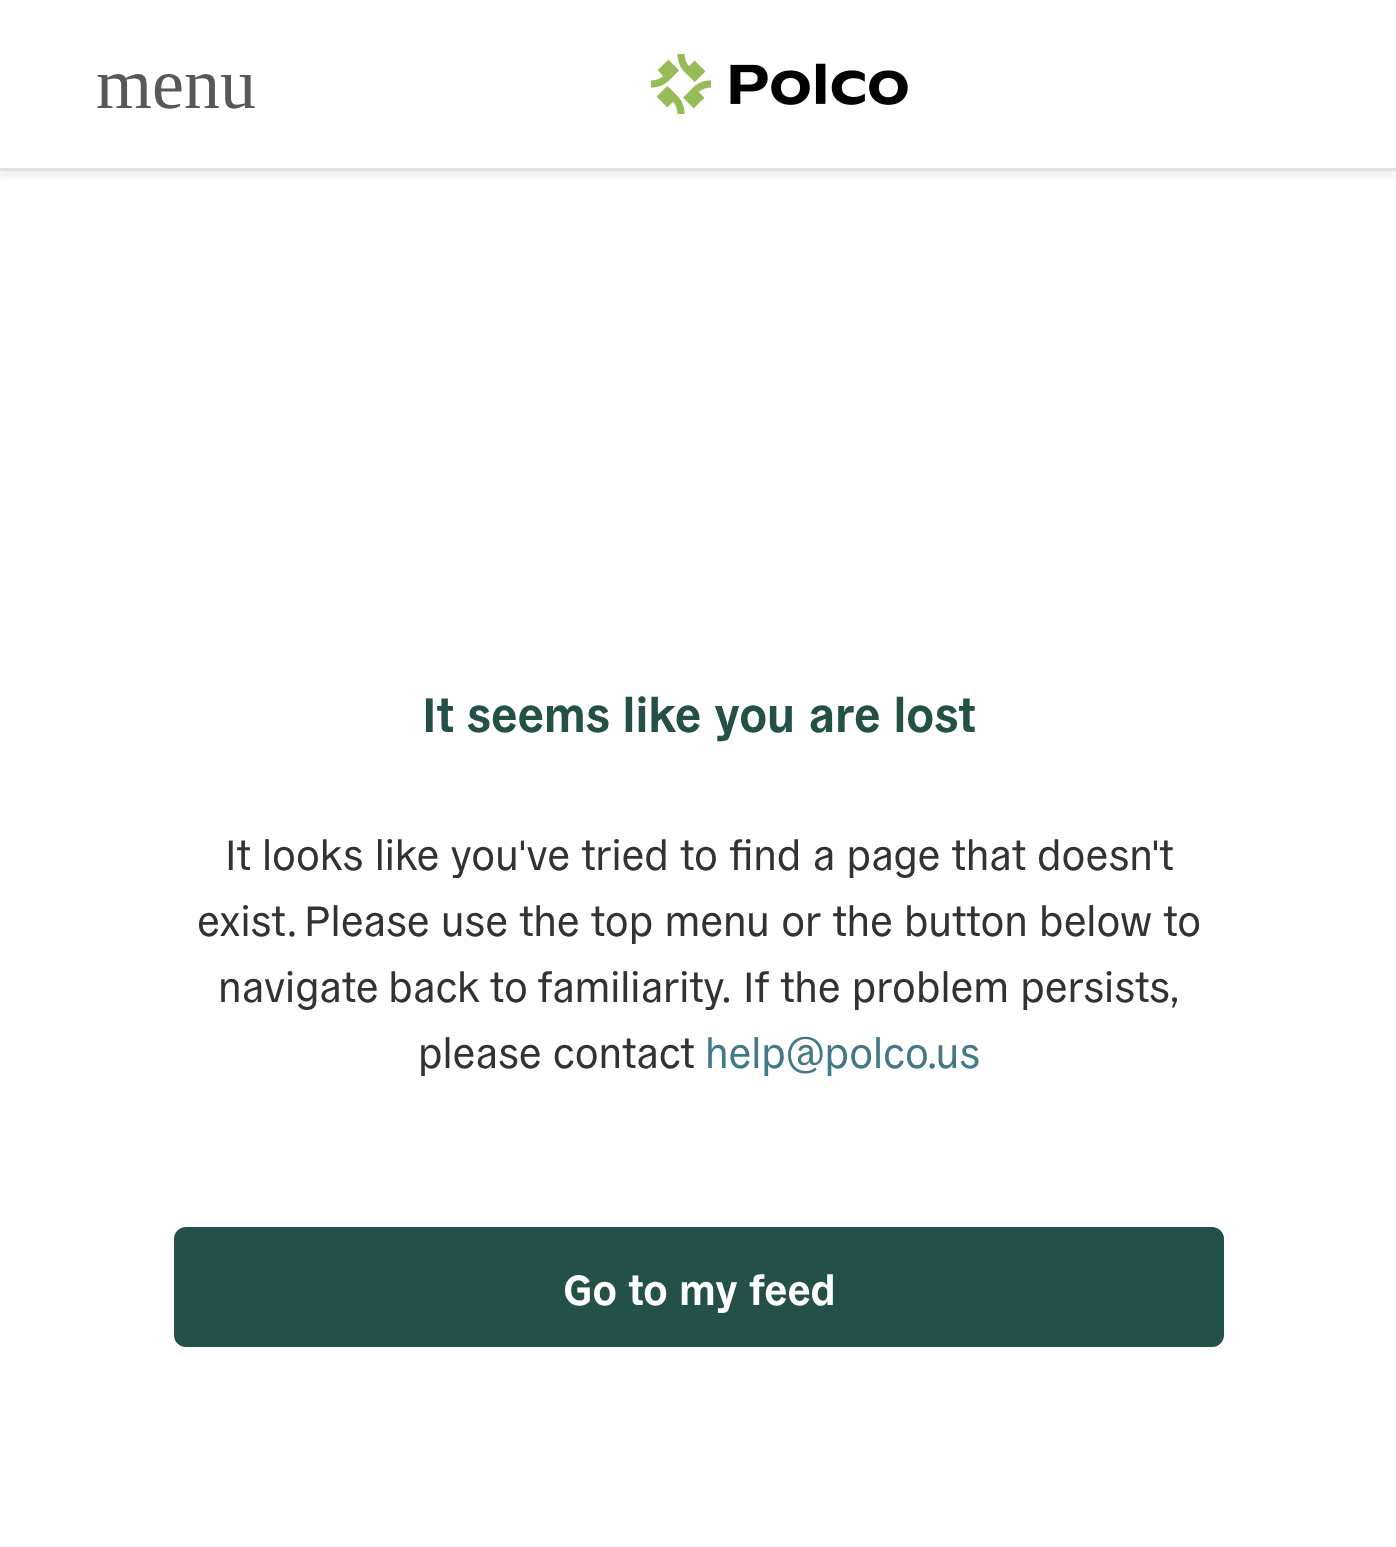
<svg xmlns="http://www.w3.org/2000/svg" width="1396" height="1547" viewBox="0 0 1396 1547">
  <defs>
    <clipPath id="clip1"><rect x="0" y="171" width="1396" height="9"/></clipPath>
  </defs>
  <rect width="100%" height="100%" fill="rgb(255,255,255)"/>
  <g clip-path="url(#clip1)">
    <rect x="0" y="6" width="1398" height="171" fill="rgba(0,0,0,0.07)" filter="blur(6px)"/>
  </g>
  <rect x="0" y="168" width="1396" height="3" fill="rgb(222,226,230)"/>
  <text x="96" y="108" font-family="Liberation Serif" font-size="72" fill="rgb(87,89,87)">menu</text>
  <image x="651" y="54" width="257" height="60" href="pic1.png"/>
  <text x="422" y="732" font-family="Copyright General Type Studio" font-size="48" font-weight="bold" fill="rgb(35,80,72)">It seems like you are lost</text>
  <g font-family="Copyright General Type Studio" font-size="42" fill="rgb(48,51,48)">
    <text x="225" y="870">It looks like you've tried to find a page that doesn't</text>
    <text x="197" y="936">exist. Please use the top menu or the button below to</text>
    <text x="218" y="1002" word-spacing="-1.5">navigate back to familiarity.</text>
    <text x="743" y="1002">If the problem persists,</text>
    <text x="418" y="1068">please contact</text>
  </g>
  <text x="705" y="1068" font-family="Copyright General Type Studio" font-size="42" fill="rgb(66,121,135)">help@polco.us</text>
  <rect x="175.5" y="1228.5" width="1047" height="117" rx="10.5" fill="rgb(35,80,72)" stroke="rgb(35,80,72)" stroke-width="3"/>
  <text x="563" y="1305" font-family="Copyright General Type Studio" font-size="42" font-weight="bold" fill="rgb(255,255,255)">Go to my feed</text>
</svg>
